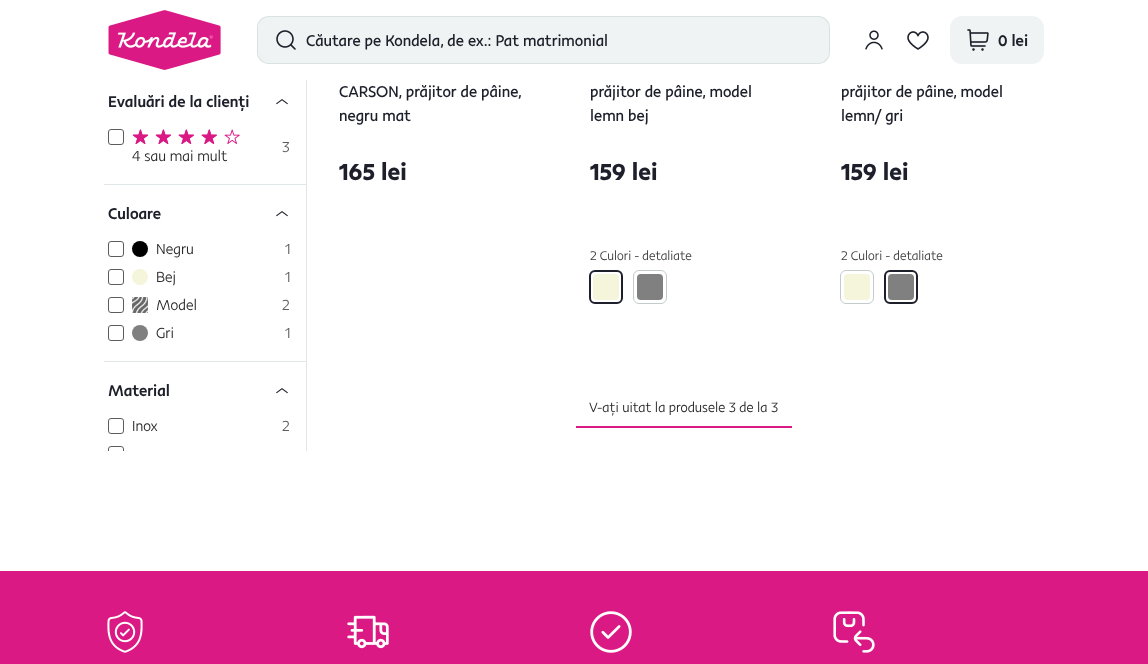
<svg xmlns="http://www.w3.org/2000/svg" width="1148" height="664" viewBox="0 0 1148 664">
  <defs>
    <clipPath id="clip1"><rect x="104" y="0" width="203" height="451"/></clipPath>
  </defs>
  <rect width="100%" height="100%" fill="rgb(255,255,255)"/>
  <image x="108" y="10" width="113" height="60" href="pic1.png"/>
  <path d="M269 17H306V63H269C263 63 258 58 258 52V28C258 22 263 17 269 17Z" fill="rgb(240,243,243)"/>
  <path d="M269 16H306V64H269C262 64 257 59 257 52V28C257 21 262 16 269 16ZM269 17H306V63H269C263 63 258 58 258 52V28C258 22 263 17 269 17Z" fill="rgb(217,225,226)" fill-rule="evenodd"/>
  <image x="276" y="30" width="20" height="20" href="pic2.png"/>
  <path d="M306 17H818C824 17 829 22 829 28V52C829 58 824 63 818 63H306Z" fill="rgb(240,243,243)"/>
  <path d="M306 16H818C825 16 830 21 830 28V52C830 59 825 64 818 64H306ZM306 17H818C824 17 829 22 829 28V52C829 58 824 63 818 63H306Z" fill="rgb(217,225,226)" fill-rule="evenodd"/>
  <text x="306" y="46" font-family="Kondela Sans" font-size="16" fill="rgb(29,31,42)">Căutare pe Kondela, de ex.: Pat matrimonial</text>
  <image x="865" y="30" width="18" height="20" href="pic3.png"/>
  <image x="907" y="31" width="22" height="19" href="pic4.png"/>
  <rect x="950" y="16" width="94" height="48" rx="12" fill="rgb(240,243,243)"/>
  <image x="967" y="29" width="22" height="22" href="pic5.png"/>
  <text x="998" y="46" font-family="Kondela Sans" font-size="16" font-weight="500" fill="rgb(29,31,42)">0 lei</text>
  <rect x="306" y="80" width="1" height="371" fill="rgb(225,231,232)"/>
  <rect x="104" y="184" width="202" height="1" fill="rgb(225,231,232)"/>
  <text x="108" y="107" font-family="Kondela Sans" font-size="16" font-weight="500" fill="rgb(29,31,42)">Evaluări de la clienți</text>
  <image x="276" y="99" width="12" height="6" href="pic6.png"/>
  <rect x="108.5" y="129.5" width="15" height="15" rx="2.5" fill="none" stroke="rgb(92,92,92)"/>
  <text x="282" y="152" font-family="Kondela Sans" font-size="15" font-weight="300" fill="rgb(92,92,92)">3</text>
  <image x="132" y="129" width="108" height="15" href="pic7.png"/>
  <image x="132" y="129" width="85" height="15" href="pic8.png"/>
  <text x="132" y="161" font-family="Kondela Sans" font-size="15" font-weight="300" fill="rgb(41,41,41)">4 sau mai mult</text>
  <rect x="104" y="361" width="202" height="1" fill="rgb(225,231,232)"/>
  <text x="108" y="219" font-family="Kondela Sans" font-size="16" font-weight="500" fill="rgb(29,31,42)">Culoare</text>
  <image x="276" y="211" width="12" height="6" href="pic6.png"/>
  <rect x="108.5" y="241.5" width="15" height="15" rx="2.5" fill="none" stroke="rgb(92,92,92)"/>
  <circle cx="140" cy="249" r="8" fill="rgb(0,0,0)"/>
  <text x="156" y="254" font-family="Kondela Sans" font-size="15" font-weight="300" fill="rgb(41,41,41)">Negru</text>
  <text x="285" y="254" font-family="Kondela Sans" font-size="15" font-weight="300" fill="rgb(92,92,92)">1</text>
  <rect x="108.5" y="269.5" width="15" height="15" rx="2.5" fill="none" stroke="rgb(92,92,92)"/>
  <circle cx="140" cy="277" r="8" fill="rgb(245,245,220)"/>
  <text x="156" y="282" font-family="Kondela Sans" font-size="15" font-weight="300" fill="rgb(41,41,41)">Bej</text>
  <text x="285" y="282" font-family="Kondela Sans" font-size="15" font-weight="300" fill="rgb(92,92,92)">1</text>
  <rect x="108.5" y="297.5" width="15" height="15" rx="2.5" fill="none" stroke="rgb(92,92,92)"/>
  <image x="132" y="297" width="16" height="16" href="pic9.png"/>
  <text x="156" y="310" font-family="Kondela Sans" font-size="15" font-weight="300" fill="rgb(41,41,41)">Model</text>
  <text x="282" y="310" font-family="Kondela Sans" font-size="15" font-weight="300" fill="rgb(92,92,92)">2</text>
  <rect x="108.5" y="325.5" width="15" height="15" rx="2.5" fill="none" stroke="rgb(92,92,92)"/>
  <circle cx="140" cy="333" r="8" fill="rgb(128,128,128)"/>
  <text x="156" y="338" font-family="Kondela Sans" font-size="15" font-weight="300" fill="rgb(41,41,41)">Gri</text>
  <text x="285" y="338" font-family="Kondela Sans" font-size="15" font-weight="300" fill="rgb(92,92,92)">1</text>
  <text x="108" y="396" font-family="Kondela Sans" font-size="16" font-weight="500" fill="rgb(29,31,42)">Material</text>
  <image x="276" y="388" width="12" height="6" href="pic6.png"/>
  <rect x="108.5" y="418.5" width="15" height="15" rx="2.5" fill="none" stroke="rgb(92,92,92)"/>
  <text x="132" y="431" font-family="Kondela Sans" font-size="15" font-weight="300" fill="rgb(41,41,41)">Inox</text>
  <text x="282" y="431" font-family="Kondela Sans" font-size="15" font-weight="300" fill="rgb(92,92,92)">2</text>
  <g clip-path="url(#clip1)">
    <rect x="108.5" y="446.5" width="15" height="15" rx="2.5" fill="none" stroke="rgb(92,92,92)"/>
  </g>
  <g font-family="Kondela Sans" font-size="16" fill="rgb(29,31,42)">
    <text>
      <tspan x="339" y="97">CARSON, prăjitor de pâine,</tspan>
      <tspan x="339" y="121">negru mat</tspan>
    </text>
  </g>
  <text x="339" y="180" font-family="Kondela Sans" font-size="24" font-weight="bold" fill="rgb(29,31,42)">165 lei</text>
  <g font-family="Kondela Sans" font-size="16" fill="rgb(29,31,42)">
    <text>
      <tspan x="590" y="97">prăjitor de pâine, model</tspan>
      <tspan x="590" y="121">lemn bej</tspan>
    </text>
  </g>
  <text x="590" y="180" font-family="Kondela Sans" font-size="24" font-weight="bold" fill="rgb(29,31,42)">159 lei</text>
  <text x="590" y="260" font-family="Kondela Sans" font-size="13" font-weight="300" fill="rgb(61,61,61)">2 Culori - detaliate</text>
  <rect x="593" y="274" width="26" height="26" rx="4" fill="rgb(245,245,220)"/>
  <rect x="590" y="271" width="32" height="32" rx="5" fill="none" stroke="rgb(29,31,42)" stroke-width="2"/>
  <rect x="637" y="274" width="26" height="26" rx="4" fill="rgb(128,128,128)"/>
  <rect x="633.5" y="270.5" width="33" height="33" rx="5.5" fill="none" stroke="rgb(195,203,204)"/>
  <g font-family="Kondela Sans" font-size="16" fill="rgb(29,31,42)">
    <text>
      <tspan x="841" y="97">prăjitor de pâine, model</tspan>
      <tspan x="841" y="121">lemn/ gri</tspan>
    </text>
  </g>
  <text x="841" y="180" font-family="Kondela Sans" font-size="24" font-weight="bold" fill="rgb(29,31,42)">159 lei</text>
  <text x="841" y="260" font-family="Kondela Sans" font-size="13" font-weight="300" fill="rgb(61,61,61)">2 Culori - detaliate</text>
  <rect x="844" y="274" width="26" height="26" rx="4" fill="rgb(245,245,220)"/>
  <rect x="840.5" y="270.5" width="33" height="33" rx="5.5" fill="none" stroke="rgb(195,203,204)"/>
  <rect x="888" y="274" width="26" height="26" rx="4" fill="rgb(128,128,128)"/>
  <rect x="885" y="271" width="32" height="32" rx="5" fill="none" stroke="rgb(29,31,42)" stroke-width="2"/>
  <text x="589" y="412" font-family="Kondela Sans" font-size="14" font-weight="300" fill="rgb(41,41,41)">V-ați uitat la produsele 3 de la 3</text>
  <rect x="576" y="426" width="216" height="2" fill="rgb(218,25,132)"/>
  <rect x="0" y="571" width="1148" height="93" fill="rgb(218,25,132)"/>
  <image x="107" y="611" width="36" height="42" href="pic10.png"/>
  <image x="347" y="615" width="42" height="34" href="pic11.png"/>
  <image x="590" y="611" width="42" height="42" href="pic12.png"/>
  <image x="833" y="611" width="42" height="42" href="pic13.png"/>
</svg>
